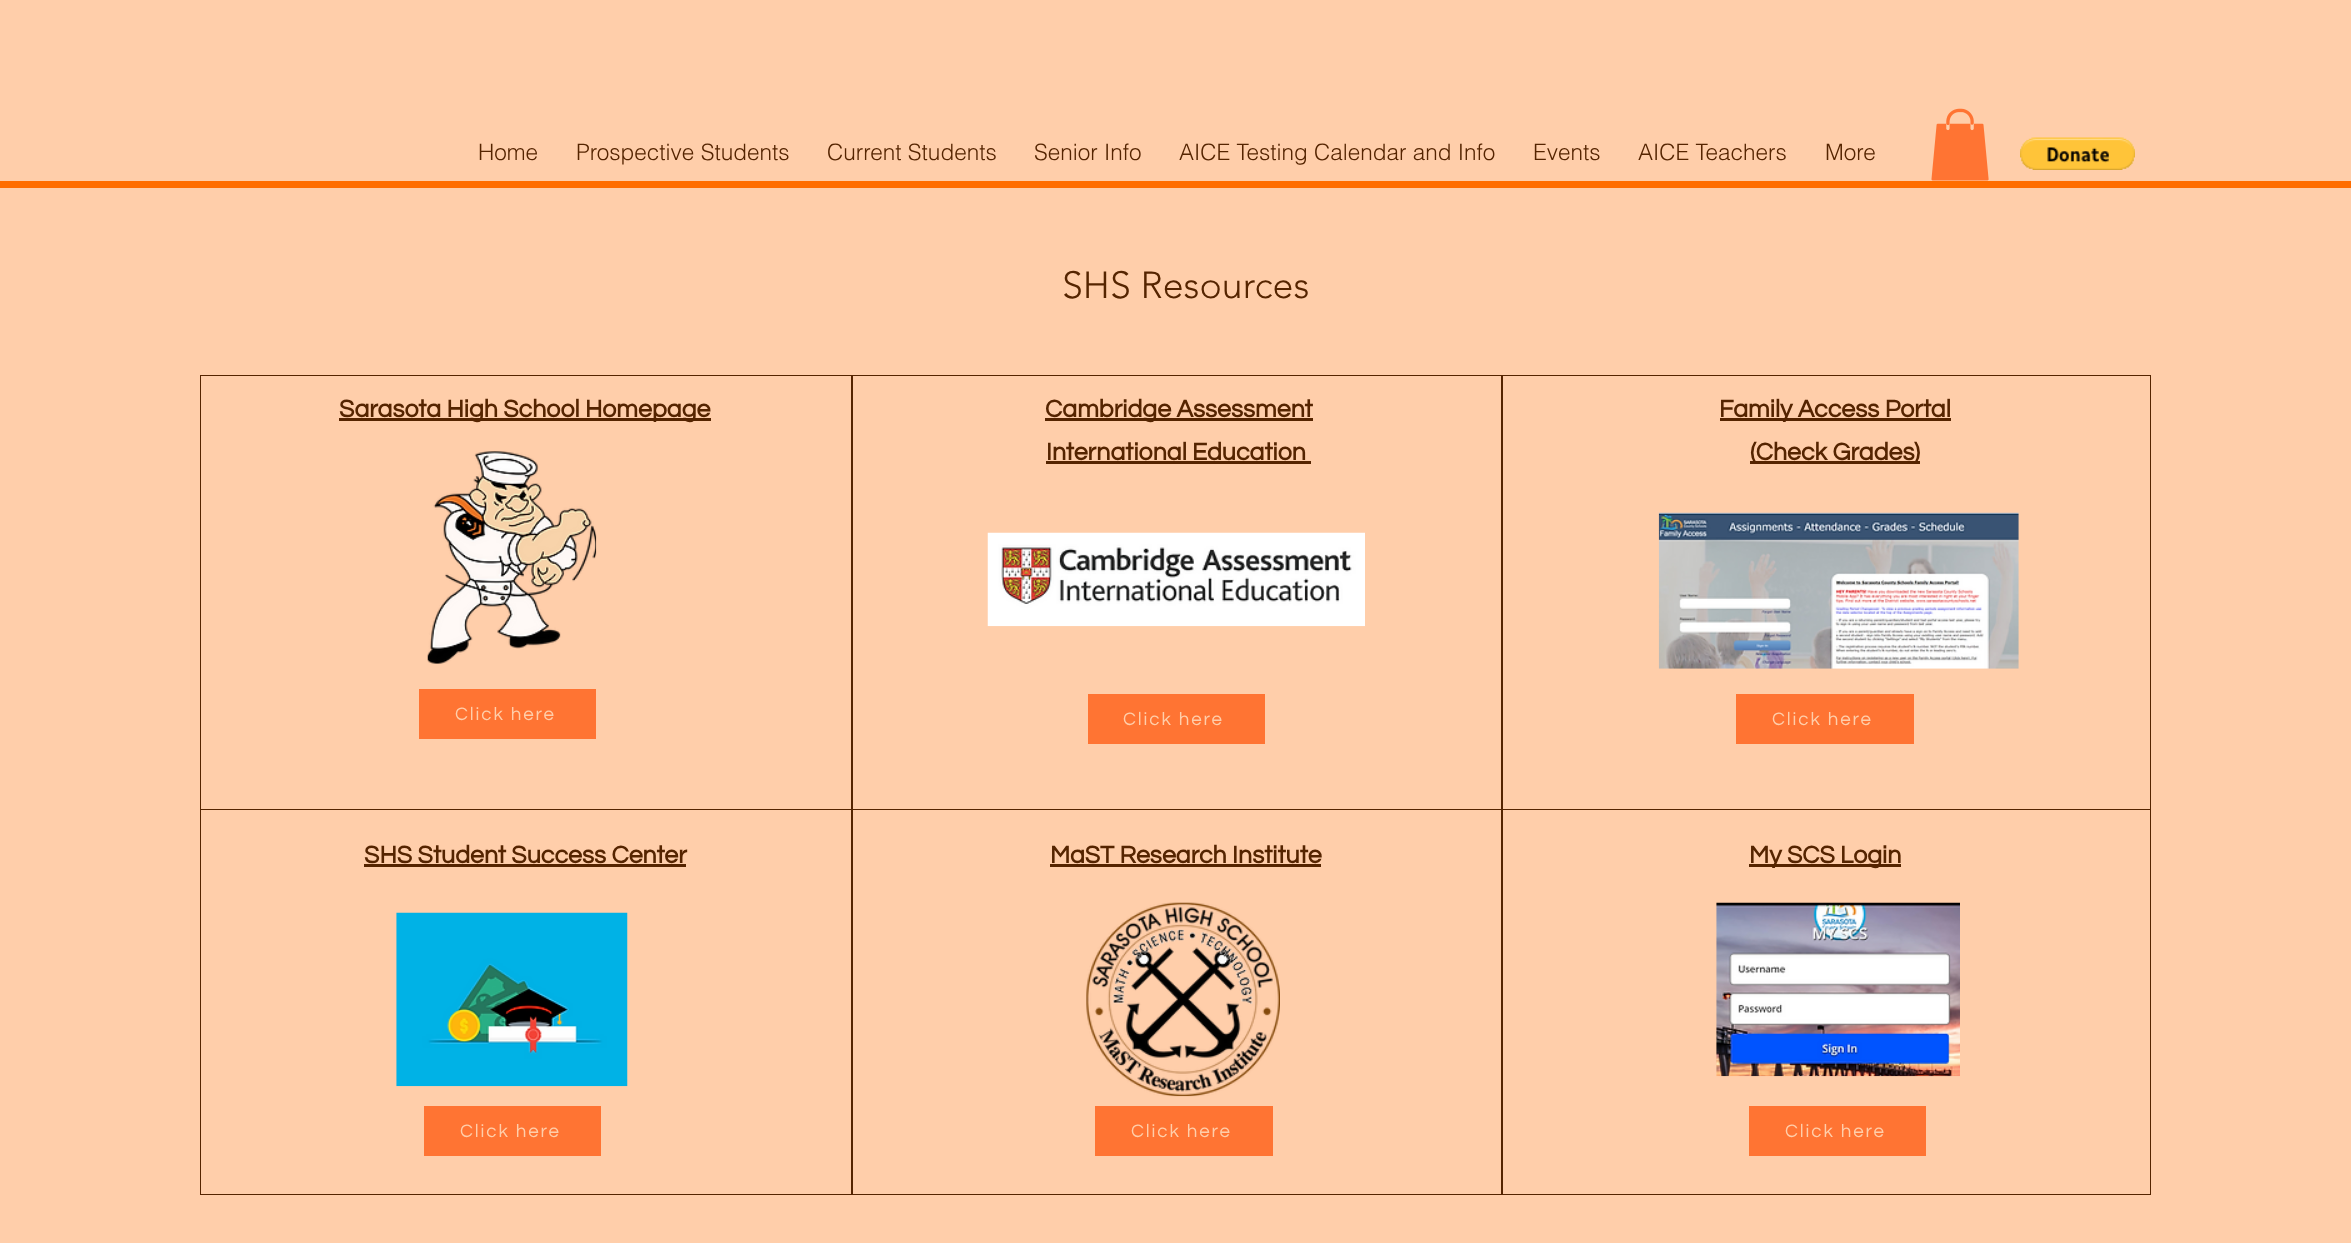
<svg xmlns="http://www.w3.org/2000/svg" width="2351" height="1243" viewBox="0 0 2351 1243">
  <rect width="100%" height="100%" fill="rgb(255,206,170)"/>
  <g font-family="helvetica" font-size="22.5" font-weight="300" fill="rgb(85,36,0)">
    <text x="478" y="160">Home</text>
    <text x="576" y="160">Prospective Students</text>
    <text x="827" y="160">Current Students</text>
    <text x="1034" y="160">Senior Info</text>
    <text x="1179" y="160">AICE Testing Calendar and Info</text>
    <text x="1533" y="160">Events</text>
    <text x="1638" y="160">AICE Teachers</text>
    <text x="1825" y="160">More</text>
  </g>
  <image x="2020" y="137" width="115" height="33" href="pic1.png"/>
  <image x="1931" y="108" width="58" height="73" href="pic2.png"/>
  <rect x="0" y="181" width="2351" height="7" fill="rgb(255,109,0)"/>
  <text x="1062" y="298" font-family="'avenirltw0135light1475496'" font-size="37.5" font-weight="300" fill="rgb(85,36,0)">SHS Resources</text>
  <rect x="200" y="375" width="1951" height="820" fill="rgb(85,36,0)"/>
  <rect x="201" y="376" width="650" height="433" fill="rgb(255,206,170)"/>
  <rect x="339" y="418" width="372" height="3" fill="rgb(85,36,0)"/>
  <text x="339" y="417" font-family="Questrial" font-size="25" font-weight="bold" fill="rgb(85,36,0)">Sarasota High School Homepage</text>
  <image x="427" y="451" width="170" height="213" href="pic3.png"/>
  <rect x="419" y="689" width="177" height="50" fill="rgb(255,116,51)"/>
  <text x="455" y="720" font-family="Questrial" font-size="18.75" letter-spacing="1.9" fill="rgb(255,206,170)">Click here</text>
  <rect x="853" y="376" width="648" height="433" fill="rgb(255,206,170)"/>
  <rect x="1045" y="418" width="268" height="3" fill="rgb(85,36,0)"/>
  <g font-family="Questrial" font-size="25" font-weight="bold" fill="rgb(85,36,0)">
    <text x="1045" y="417">Cambridge Assessment</text>
    <text x="1046" y="460">International Education</text>
  </g>
  <rect x="1046" y="461" width="265" height="3" fill="rgb(85,36,0)"/>
  <image x="987" y="532" width="378" height="95" href="pic4.png"/>
  <rect x="1088" y="694" width="177" height="50" fill="rgb(255,116,51)"/>
  <text x="1123" y="725" font-family="Questrial" font-size="18.75" letter-spacing="1.9" fill="rgb(255,206,170)">Click here</text>
  <rect x="1503" y="376" width="647" height="433" fill="rgb(255,206,170)"/>
  <rect x="1720" y="418" width="231" height="3" fill="rgb(85,36,0)"/>
  <text x="1719" y="417" font-family="Questrial" font-size="25" font-weight="bold" fill="rgb(85,36,0)">Family Access Portal</text>
  <rect x="1750" y="461" width="170" height="3" fill="rgb(85,36,0)"/>
  <text x="1750" y="460" font-family="Questrial" font-size="25" font-weight="bold" fill="rgb(85,36,0)">(Check Grades)</text>
  <image x="1658" y="512" width="361" height="157" href="pic5.png"/>
  <rect x="1736" y="694" width="178" height="50" fill="rgb(255,116,51)"/>
  <text x="1772" y="725" font-family="Questrial" font-size="18.75" letter-spacing="1.9" fill="rgb(255,206,170)">Click here</text>
  <rect x="201" y="810" width="650" height="384" fill="rgb(255,206,170)"/>
  <text x="364" y="863" font-family="Questrial" font-size="25" font-weight="bold" fill="rgb(85,36,0)">SHS Student Success Center</text>
  <rect x="364" y="864" width="322" height="3" fill="rgb(85,36,0)"/>
  <image x="396" y="912" width="232" height="175" href="pic6.png"/>
  <rect x="424" y="1106" width="177" height="50" fill="rgb(255,116,51)"/>
  <text x="460" y="1137" font-family="Questrial" font-size="18.75" letter-spacing="1.9" fill="rgb(255,206,170)">Click here</text>
  <rect x="853" y="810" width="648" height="384" fill="rgb(255,206,170)"/>
  <text x="1050" y="863" font-family="Questrial" font-size="25" font-weight="bold" fill="rgb(85,36,0)">MaST Research Institute</text>
  <rect x="1050" y="864" width="271" height="3" fill="rgb(85,36,0)"/>
  <image x="1086" y="902" width="194" height="195" href="pic7.png"/>
  <rect x="1095" y="1106" width="178" height="50" fill="rgb(255,116,51)"/>
  <text x="1131" y="1137" font-family="Questrial" font-size="18.75" letter-spacing="1.9" fill="rgb(255,206,170)">Click here</text>
  <rect x="1503" y="810" width="647" height="384" fill="rgb(255,206,170)"/>
  <rect x="1749" y="864" width="152" height="3" fill="rgb(85,36,0)"/>
  <text x="1749" y="863" font-family="Questrial" font-size="25" font-weight="bold" fill="rgb(85,36,0)">My SCS Login</text>
  <image x="1716" y="902" width="244" height="175" href="pic8.png"/>
  <rect x="1749" y="1106" width="177" height="50" fill="rgb(255,116,51)"/>
  <text x="1785" y="1137" font-family="Questrial" font-size="18.75" letter-spacing="1.9" fill="rgb(255,206,170)">Click here</text>
</svg>
